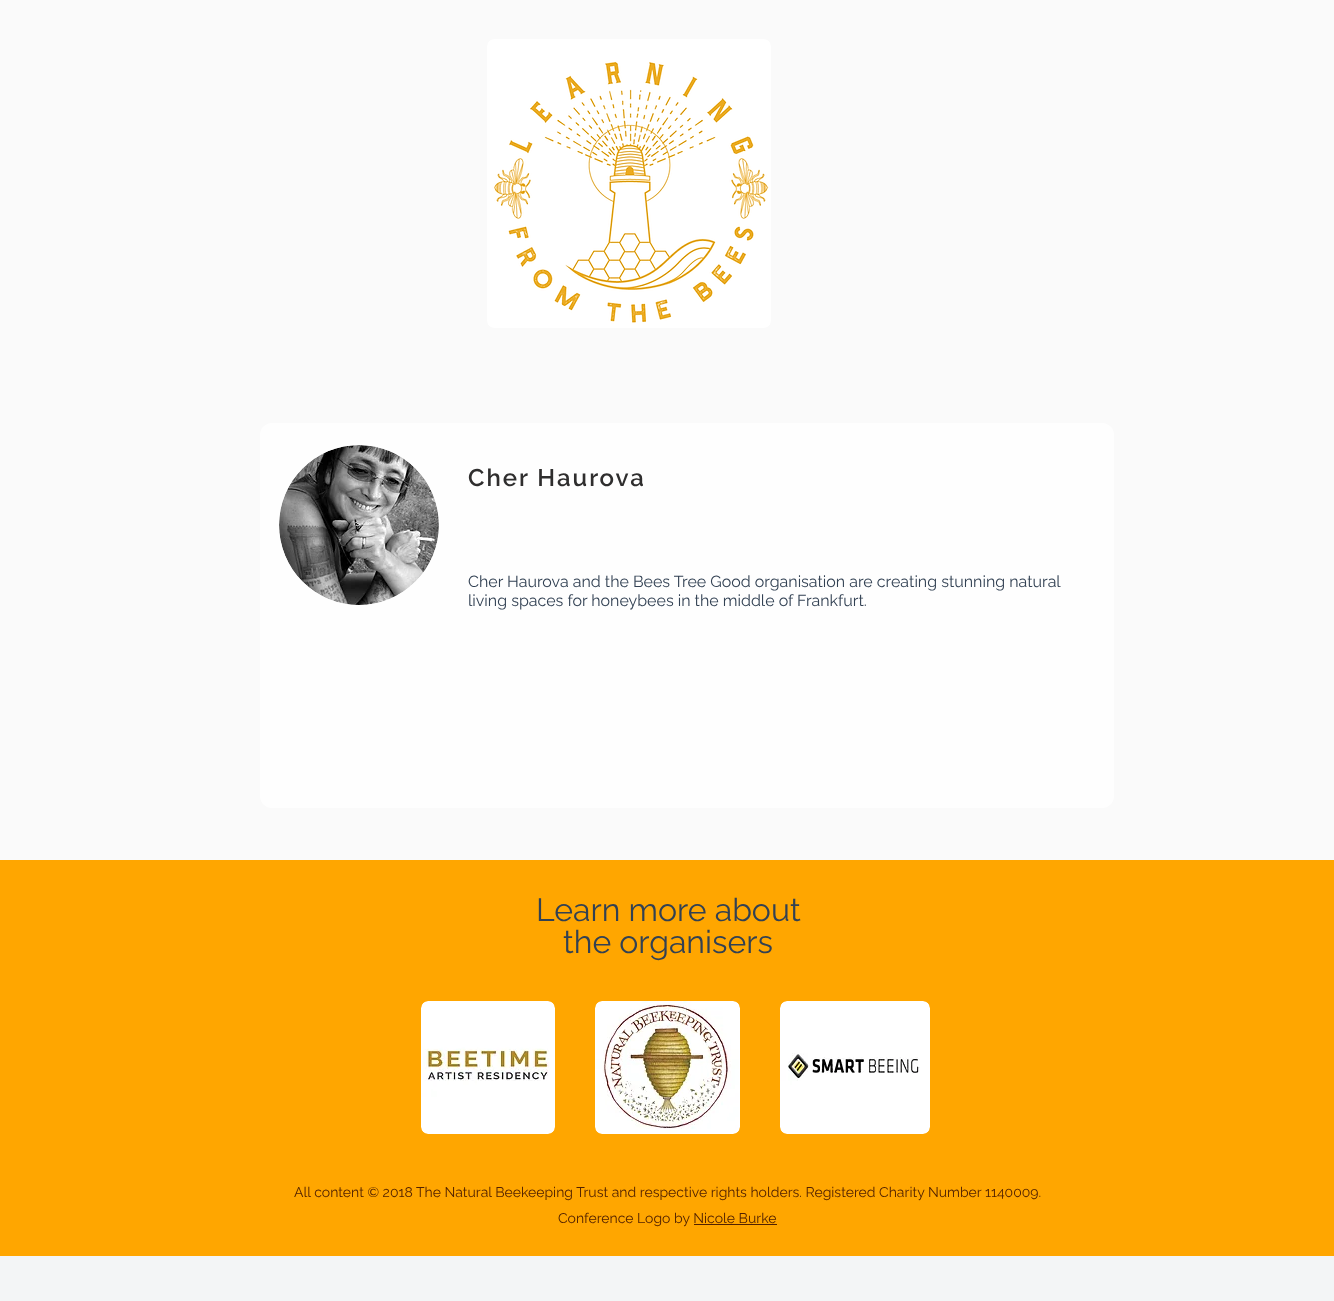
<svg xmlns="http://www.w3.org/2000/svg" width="1334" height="1301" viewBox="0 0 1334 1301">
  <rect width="100%" height="100%" fill="rgb(243,245,246)"/>
  <rect x="0" y="0" width="1334" height="860" fill="rgb(250,250,250)"/>
  <image x="487" y="39" width="284" height="289" href="pic1.png"/>
  <rect x="260" y="423" width="854" height="385" rx="12" fill="rgb(254,254,254)"/>
  <image x="279" y="445" width="160" height="160" href="pic2.png"/>
  <text x="468" y="486" font-family="Raleway" font-size="24" font-weight="600" letter-spacing="2" fill="rgb(47,46,46)">Cher Haurova</text>
  <g font-family="Raleway" font-size="16" fill="rgb(50,65,83)">
    <text>
      <tspan x="468" y="587">Cher Haurova and the Bees Tree Good organisation are creating stunning natural</tspan>
      <tspan x="468" y="606">living spaces for honeybees in the middle of Frankfurt.</tspan>
    </text>
  </g>
  <rect x="0" y="860" width="1334" height="396" fill="rgb(255,166,0)"/>
  <g font-family="Raleway" font-size="32" fill="rgb(50,65,83)">
    <text x="536" y="921">Learn more about</text>
    <text x="563" y="953">the organisers</text>
  </g>
  <image x="421" y="1001" width="134" height="133" href="pic3.png"/>
  <image x="595" y="1001" width="145" height="133" href="pic4.png"/>
  <image x="780" y="1001" width="150" height="133" href="pic5.png"/>
  <g font-family="Raleway" font-size="14" fill="rgb(82,34,0)">
    <text x="294" y="1197">All content © 2018 The Natural Beekeeping Trust and respective rights holders. Registered Charity Number 1140009.</text>
    <text x="558" y="1223">Conference Logo by Nicole Burke</text>
  </g>
  <rect x="694" y="1224" width="83" height="1" fill="rgb(82,34,0)"/>
</svg>
